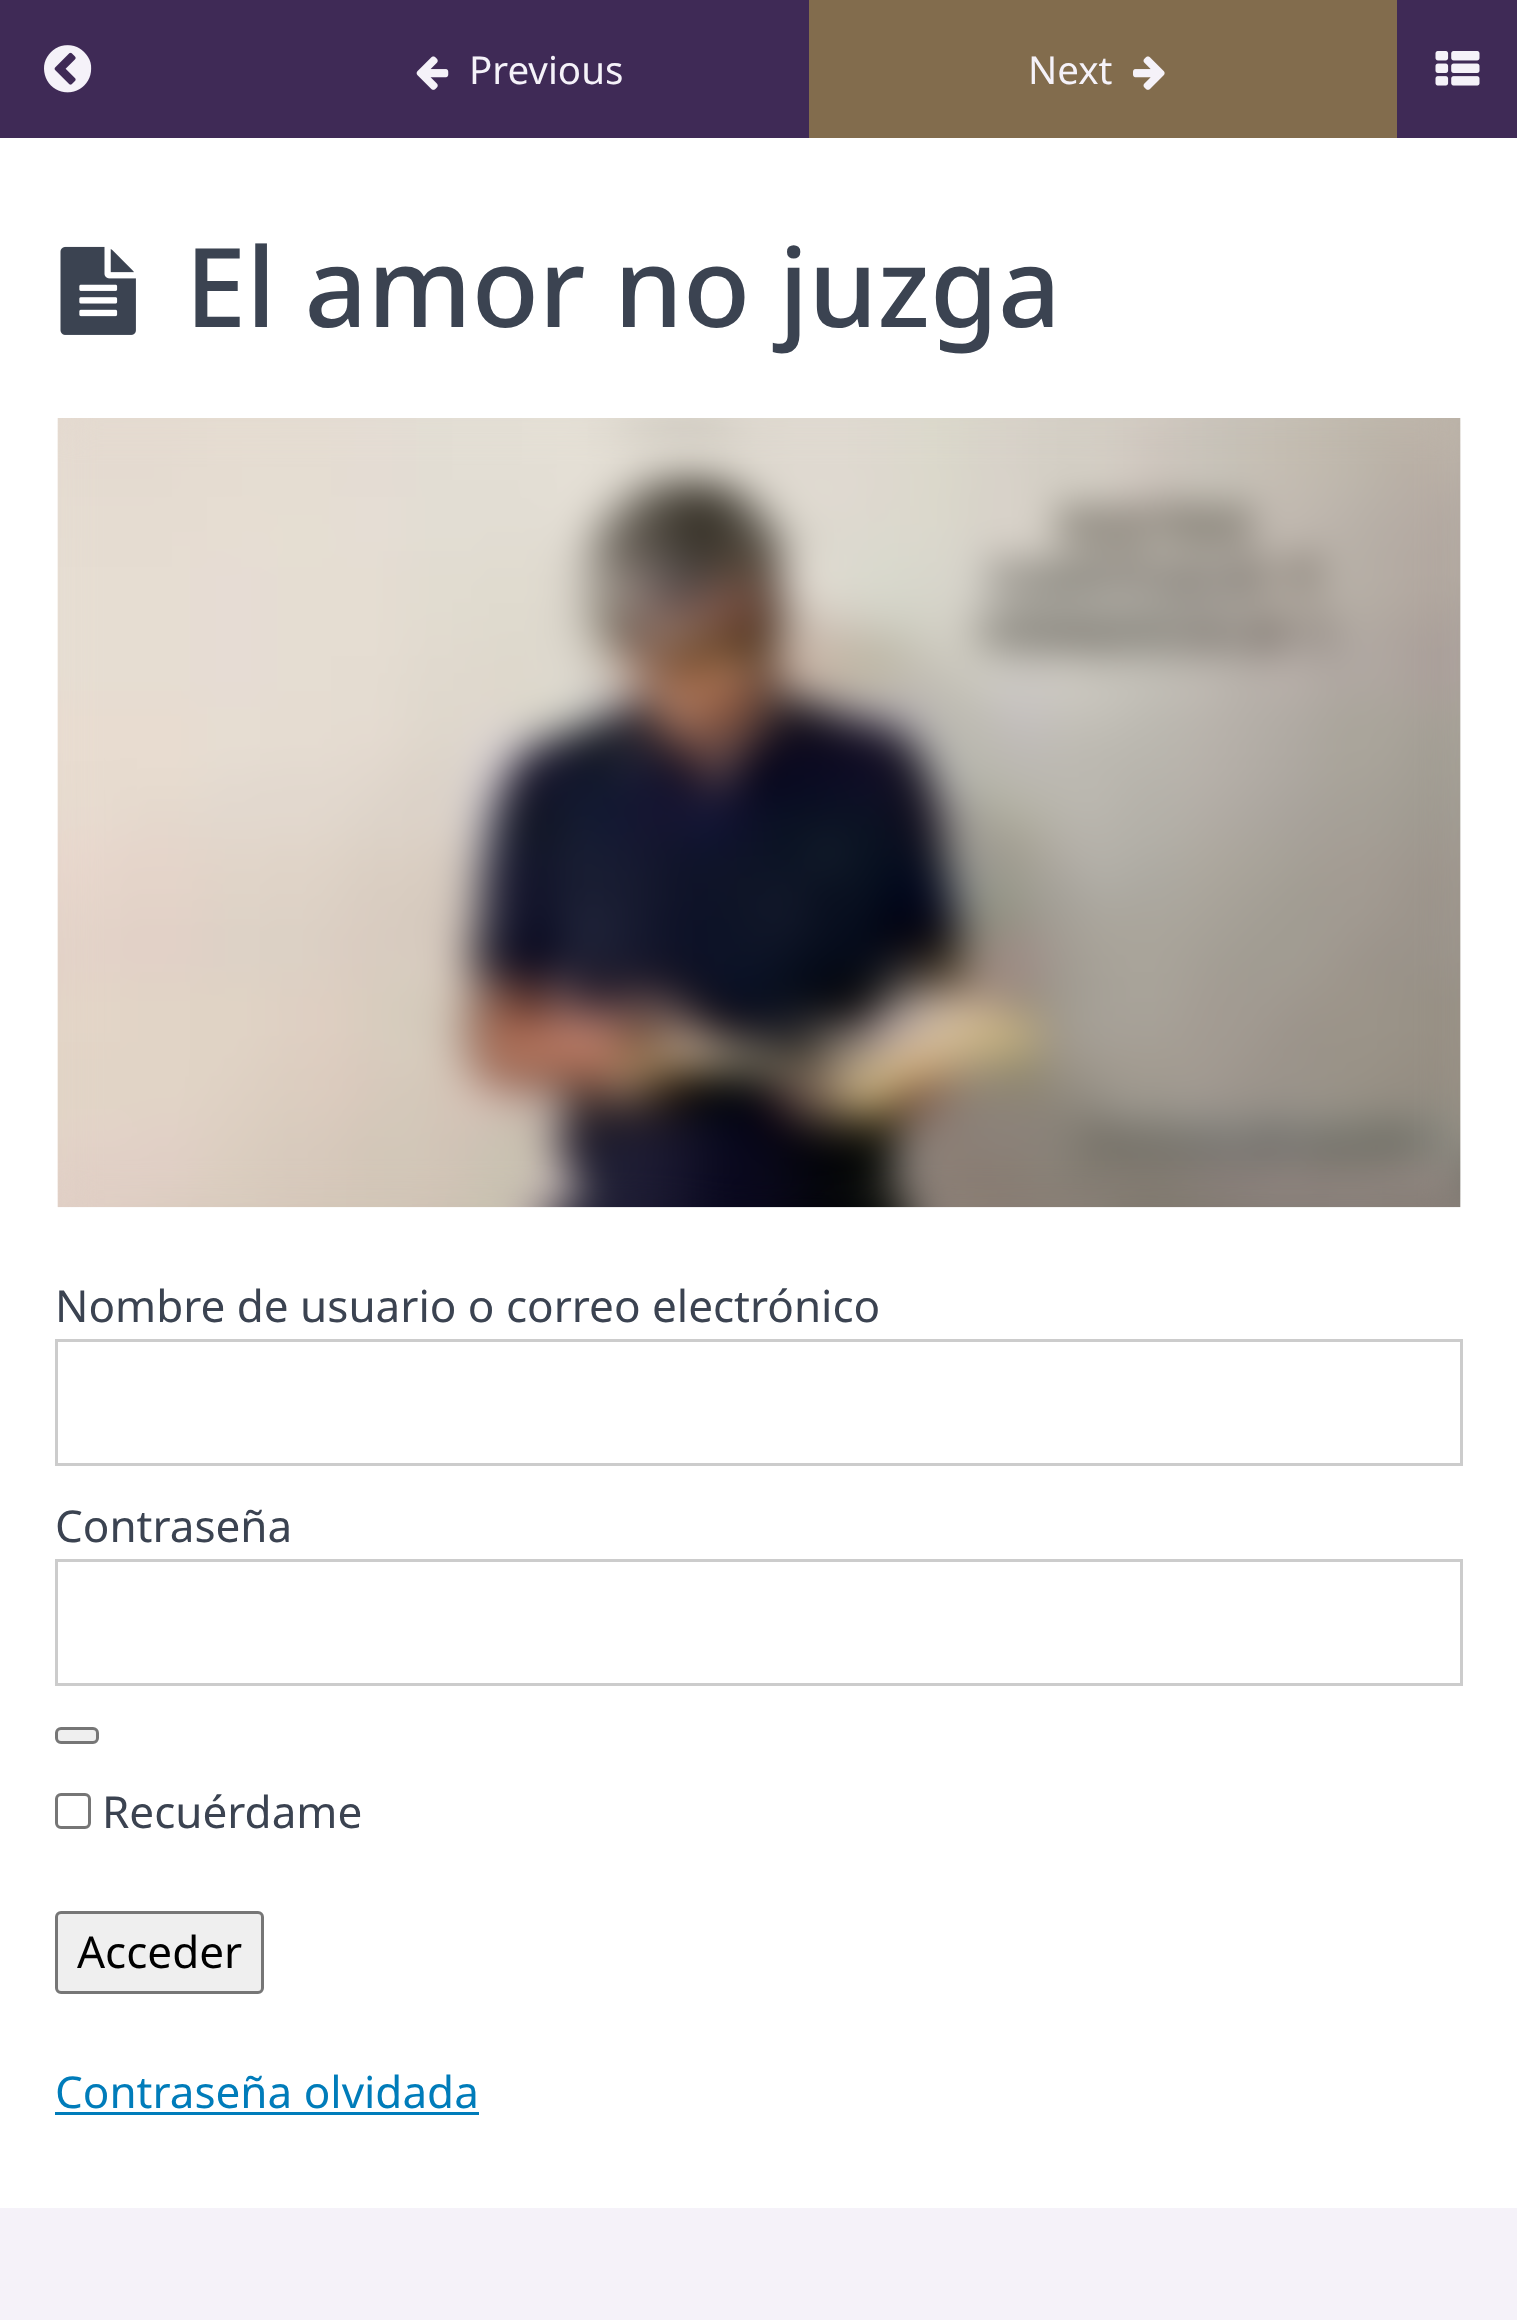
<svg xmlns="http://www.w3.org/2000/svg" width="1517" height="2320" viewBox="0 0 1517 2320">
  <rect width="100%" height="100%" fill="rgb(245,242,249)"/>
  <rect x="0" y="0" width="1517" height="138" fill="rgb(63,42,86)"/>
  <image x="44" y="45" width="48" height="48" href="pic1.png"/>
  <image x="416" y="56" width="33" height="34" href="pic2.png"/>
  <text x="469" y="84" font-family="Noto Sans" font-size="38.5" fill="rgb(245,242,249)">Previous</text>
  <rect x="809" y="0" width="588" height="138" fill="rgb(130,108,77)"/>
  <text x="1028" y="84" font-family="Noto Sans" font-size="38.5" fill="rgb(245,242,249)">Next</text>
  <image x="1133" y="56" width="32" height="34" href="pic3.png"/>
  <image x="1435" y="51" width="45" height="35" href="pic4.png"/>
  <rect x="0" y="138" width="1517" height="2070" fill="rgb(255,255,255)"/>
  <image x="60" y="246" width="76" height="89" href="pic5.png"/>
  <text x="185" y="327" font-family="Noto Sans" font-size="110" font-weight="500" fill="rgb(59,67,81)">El amor no juzga</text>
  <image x="57" y="418" width="1404" height="790" href="pic6.png"/>
  <text x="55" y="1322" font-family="Noto Sans" font-size="44" fill="rgb(59,67,81)">Nombre de usuario o correo electrónico</text>
  <rect x="56.5" y="1340.5" width="1405" height="124" fill="none" stroke="rgb(204,204,204)" stroke-width="3"/>
  <text x="55" y="1542" font-family="Noto Sans" font-size="44" fill="rgb(59,67,81)">Contraseña</text>
  <rect x="56.5" y="1560.5" width="1405" height="124" fill="none" stroke="rgb(204,204,204)" stroke-width="3"/>
  <rect x="56.5" y="1728.5" width="41" height="14" rx="4.5" fill="rgb(239,239,239)" stroke="rgb(118,118,118)" stroke-width="3"/>
  <rect x="56.5" y="1794.5" width="33" height="33" rx="4.5" fill="none" stroke="rgb(118,118,118)" stroke-width="3"/>
  <text x="102" y="1828" font-family="Noto Sans" font-size="44" fill="rgb(59,67,81)">Recuérdame</text>
  <rect x="56.5" y="1912.5" width="206" height="80" rx="4.5" fill="rgb(239,239,239)" stroke="rgb(118,118,118)" stroke-width="3"/>
  <text x="77" y="1968" font-family="Noto Sans" font-size="44" fill="rgb(0,0,0)">Acceder</text>
  <text x="55" y="2108" font-family="Noto Sans" font-size="44" fill="rgb(0,124,186)">Contraseña olvidada</text>
  <rect x="55" y="2112" width="424" height="3" fill="rgb(0,124,186)"/>
</svg>
